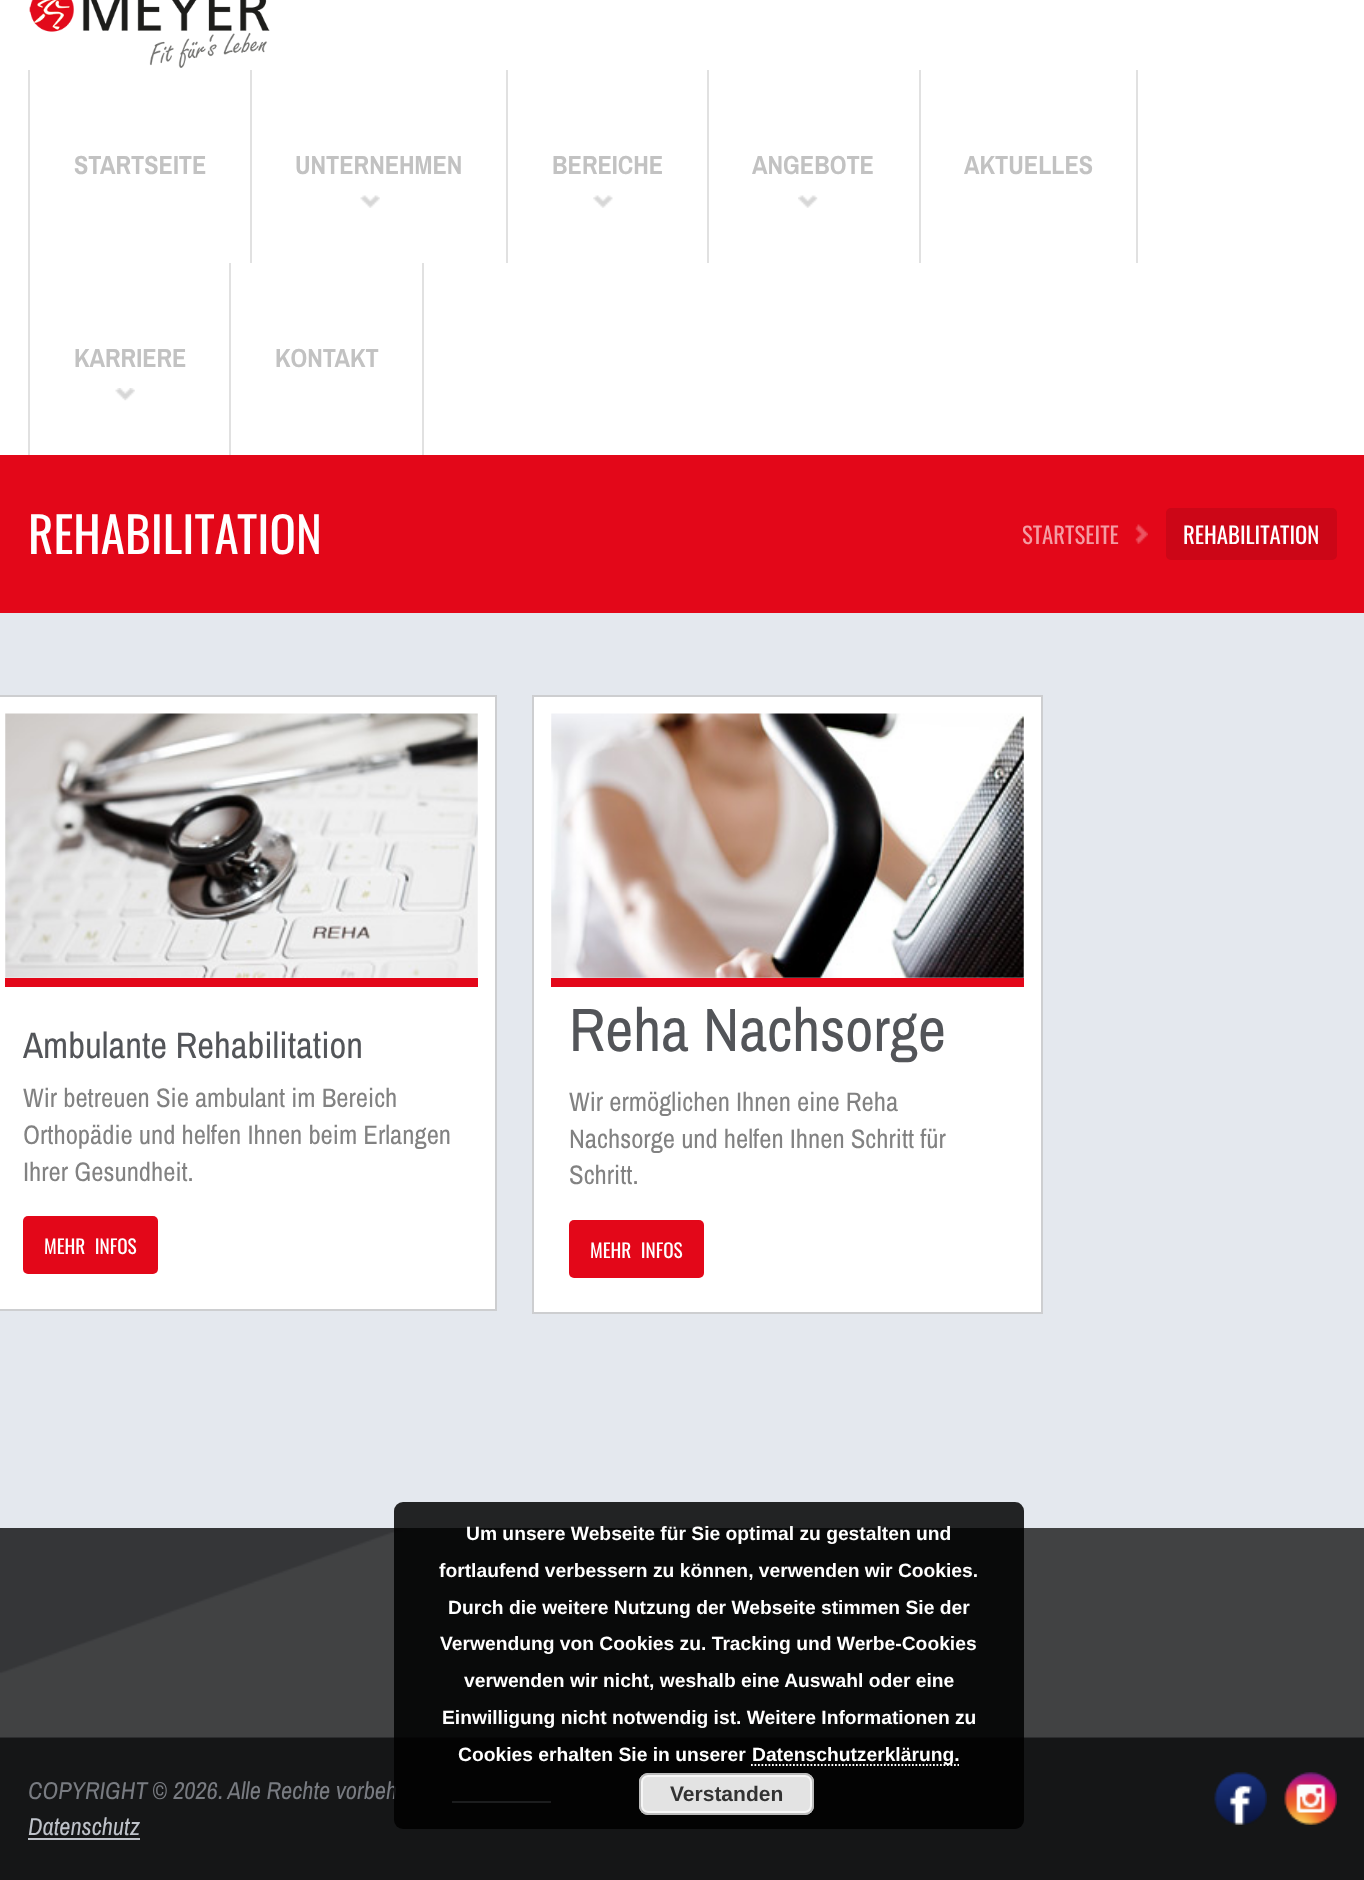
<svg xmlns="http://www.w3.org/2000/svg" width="1364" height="1880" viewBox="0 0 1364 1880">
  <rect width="100%" height="100%" fill="rgb(255,255,255)"/>
  <image x="29" y="0" width="241" height="68" href="pic1.png"/>
  <rect x="28" y="70" width="2" height="385" fill="rgb(225,225,225)"/>
  <rect x="250" y="70" width="2" height="193" fill="rgb(225,225,225)"/>
  <text x="74" y="174" font-family="Archivo Narrow" font-size="26.25" font-weight="bold" fill="rgb(194,194,194)">STARTSEITE</text>
  <rect x="506" y="70" width="2" height="193" fill="rgb(225,225,225)"/>
  <text x="295" y="174" font-family="Archivo Narrow" font-size="26.25" font-weight="bold" fill="rgb(194,194,194)">UNTERNEHMEN</text>
  <image x="360" y="195" width="20" height="13" href="pic2.png"/>
  <rect x="707" y="70" width="2" height="193" fill="rgb(225,225,225)"/>
  <text x="552" y="174" font-family="Archivo Narrow" font-size="26.25" font-weight="bold" fill="rgb(194,194,194)">BEREICHE</text>
  <image x="593" y="195" width="20" height="13" href="pic3.png"/>
  <rect x="919" y="70" width="2" height="193" fill="rgb(225,225,225)"/>
  <text x="752" y="174" font-family="Archivo Narrow" font-size="26.25" font-weight="bold" fill="rgb(194,194,194)">ANGEBOTE</text>
  <image x="798" y="195" width="20" height="13" href="pic4.png"/>
  <rect x="1136" y="70" width="2" height="193" fill="rgb(225,225,225)"/>
  <text x="964" y="174" font-family="Archivo Narrow" font-size="26.25" font-weight="bold" fill="rgb(194,194,194)">AKTUELLES</text>
  <rect x="229" y="263" width="2" height="192" fill="rgb(225,225,225)"/>
  <text x="74" y="367" font-family="Archivo Narrow" font-size="26.25" font-weight="bold" fill="rgb(194,194,194)">KARRIERE</text>
  <image x="115" y="388" width="20" height="13" href="pic5.png"/>
  <rect x="422" y="263" width="2" height="192" fill="rgb(225,225,225)"/>
  <text x="275" y="367" font-family="Archivo Narrow" font-size="26.25" font-weight="bold" fill="rgb(194,194,194)">KONTAKT</text>
  <rect x="0" y="455" width="1364" height="158" fill="rgb(227,7,25)"/>
  <text x="28" y="554" font-family="Oswald" font-size="49" fill="rgb(255,255,255)">REHABILITATION</text>
  <text x="1022" y="544" font-family="Oswald" font-size="22.75" fill="rgb(244,156,163)">STARTSEITE</text>
  <image x="1135" y="524" width="13" height="20" href="pic6.png"/>
  <rect x="1166" y="508" width="171" height="52" rx="5" fill="rgb(204,6,23)"/>
  <text x="1183" y="544" font-family="Oswald" font-size="22.75" fill="rgb(255,255,255)">REHABILITATION</text>
  <rect x="0" y="613" width="1364" height="915" fill="rgb(228,232,238)"/>
  <rect x="-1" y="696" width="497" height="614" fill="rgb(255,255,255)" stroke="rgb(205,206,208)" stroke-width="2"/>
  <rect x="5" y="978" width="473" height="9" fill="rgb(227,7,25)"/>
  <image x="5" y="713" width="473" height="265" href="pic7.png"/>
  <text x="23" y="1058" font-family="Archivo Narrow" font-size="36.75" fill="rgb(83,85,89)">Ambulante Rehabilitation</text>
  <g font-family="Archivo Narrow" font-size="26.75" fill="rgb(130,130,130)">
    <text>
      <tspan x="23" y="1107">Wir betreuen Sie ambulant im Bereich</tspan>
      <tspan x="23" y="1144">Orthopädie und helfen Ihnen beim Erlangen</tspan>
      <tspan x="23" y="1181">Ihrer Gesundheit.</tspan>
    </text>
  </g>
  <rect x="23" y="1216" width="135" height="58" rx="5" fill="rgb(227,7,25)"/>
  <text x="44" y="1254" word-spacing="5" font-family="Oswald" font-size="19.25" fill="rgb(255,255,255)">MEHR INFOS</text>
  <rect x="533" y="696" width="509" height="617" fill="rgb(255,255,255)" stroke="rgb(205,206,208)" stroke-width="2"/>
  <rect x="551" y="978" width="473" height="9" fill="rgb(227,7,25)"/>
  <image x="551" y="713" width="473" height="265" href="pic8.png"/>
  <text x="569" y="1051" font-family="Archivo Narrow" font-size="61.25" fill="rgb(83,85,89)">Reha Nachsorge</text>
  <g font-family="Archivo Narrow" font-size="26.75" fill="rgb(130,130,130)">
    <text>
      <tspan x="569" y="1111">Wir ermöglichen Ihnen eine Reha</tspan>
      <tspan x="569" y="1148">Nachsorge und helfen Ihnen Schritt für</tspan>
      <tspan x="569" y="1184">Schritt.</tspan>
    </text>
  </g>
  <rect x="569" y="1220" width="135" height="58" rx="5" fill="rgb(227,7,25)"/>
  <text x="590" y="1258" word-spacing="5" font-family="Oswald" font-size="19.25" fill="rgb(255,255,255)">MEHR INFOS</text>
  <rect x="0" y="1528" width="1364" height="210" fill="rgb(38,39,41)"/>
  <image x="0" y="1528" width="1364" height="210" href="pic9.png"/>
  <rect x="0" y="1738" width="1364" height="142" fill="rgb(21,22,23)"/>
  <text x="28" y="1799" font-family="Archivo Narrow" font-size="24.5" font-style="italic" fill="rgb(120,123,129)">COPYRIGHT © 2026. Alle Rechte vorbeh</text>
  <rect x="452" y="1801" width="99" height="2" fill="rgb(190,194,201)"/>
  <rect x="394" y="1502" width="630" height="327" rx="9" fill="rgba(0,0,0,0.85)"/>
  <g font-family="Liberation Sans" font-size="19.25" font-weight="bold" fill="rgb(255,255,255)">
    <text x="466" y="1540">Um unsere Webseite für Sie optimal zu gestalten und</text>
    <text x="439" y="1577">fortlaufend verbessern zu können, verwenden wir Cookies.</text>
    <text x="448" y="1614">Durch die weitere Nutzung der Webseite stimmen Sie der</text>
    <text x="440" y="1650">Verwendung von Cookies zu. Tracking und Werbe-Cookies</text>
    <text x="464" y="1687">verwenden wir nicht, weshalb eine Auswahl oder eine</text>
    <text x="442" y="1724">Einwilligung nicht notwendig ist. Weitere Informationen zu</text>
    <text x="458" y="1761">Cookies erhalten Sie in unserer</text>
  </g>
  <path d="M751 1765H959" fill="none" stroke="rgb(255,255,255)" stroke-width="1.8" stroke-dasharray="1.75 1.75"/>
  <text x="752" y="1761" font-family="Liberation Sans" font-size="19.25" font-weight="bold" fill="rgb(255,255,255)">Datenschutzerklärung.</text>
  <rect x="639" y="1773" width="175" height="42" rx="9" fill="rgb(227,227,227)"/>
  <rect x="642" y="1776" width="169" height="36" rx="6" fill="none" stroke="rgb(246,246,246)" stroke-width="2"/>
  <rect x="640" y="1774" width="173" height="40" rx="8" fill="none" stroke="rgb(187,187,187)" stroke-width="2"/>
  <text x="670" y="1801" font-family="Liberation Sans" font-size="21" font-weight="bold" fill="rgb(51,51,51)">Verstanden</text>
  <text x="28" y="1835" font-family="Archivo Narrow" font-size="24.5" font-style="italic" fill="rgb(190,194,201)">Datenschutz</text>
  <rect x="28" y="1838" width="112" height="2" fill="rgb(190,194,201)"/>
  <image x="1214" y="1772" width="53" height="53" href="pic10.png"/>
  <image x="1284" y="1772" width="53" height="53" href="pic11.png"/>
</svg>
